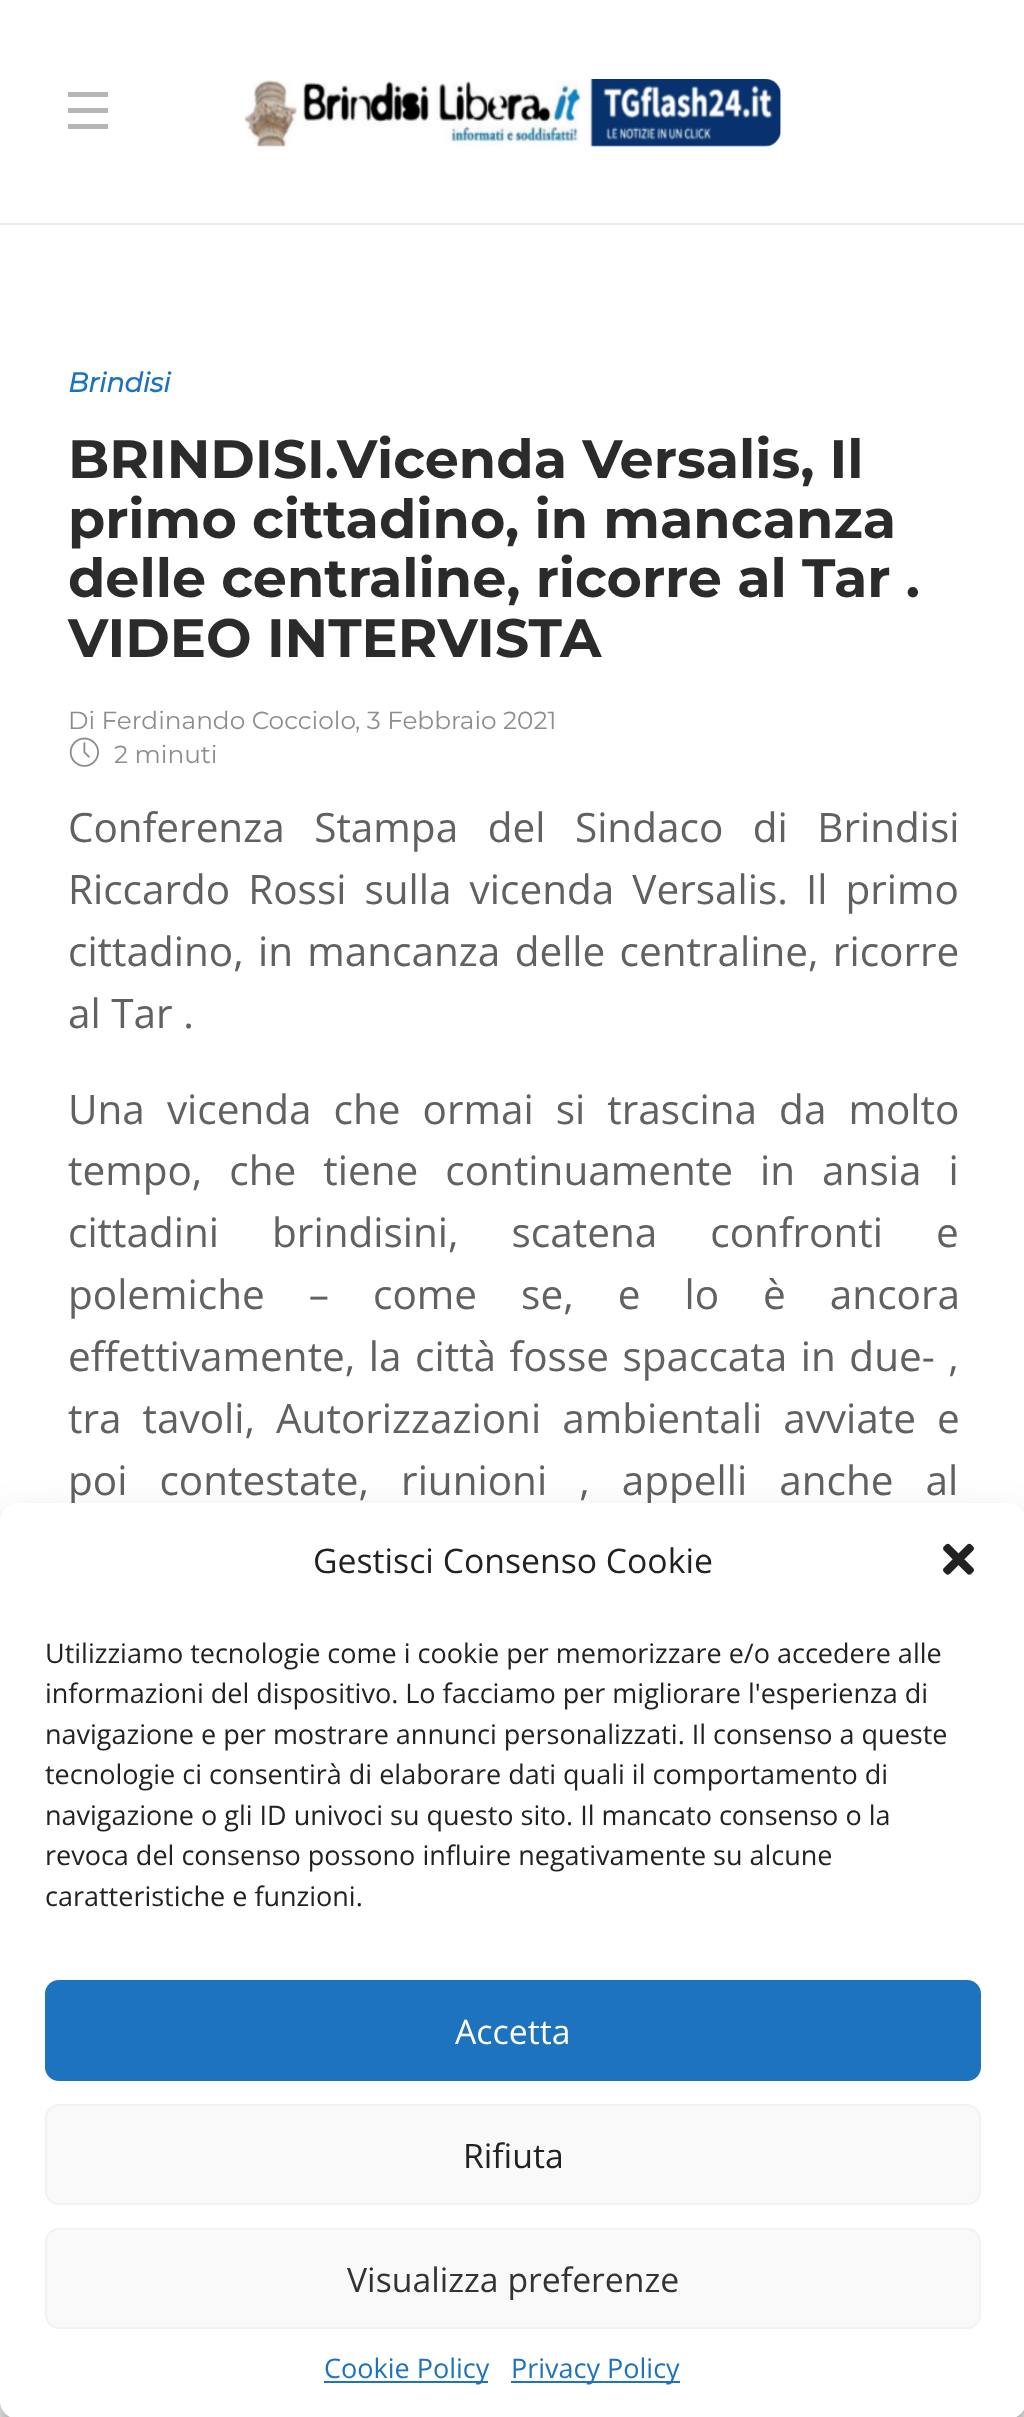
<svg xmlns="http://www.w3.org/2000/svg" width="1024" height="2417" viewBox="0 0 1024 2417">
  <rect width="100%" height="100%" fill="rgb(255,255,255)"/>
  <rect x="0" y="223" width="1024" height="2" fill="rgb(237,237,237)"/>
  <rect x="68" y="92" width="40" height="5" fill="rgb(181,181,181)"/>
  <rect x="68" y="108" width="40" height="5" fill="rgb(181,181,181)"/>
  <rect x="68" y="124" width="40" height="5" fill="rgb(181,181,181)"/>
  <image x="245" y="79" width="536" height="68" href="pic1.png"/>
  <text x="68" y="392" font-family="Montserrat" font-size="27" font-weight="bold" font-style="italic" fill="rgb(30,115,190)">Brindisi</text>
  <g font-family="Montserrat" font-size="54" font-weight="100" fill="rgb(43,43,43)">
    <text>
      <tspan x="68" y="478">BRINDISI.Vicenda Versalis, Il</tspan>
      <tspan x="68" y="538">primo cittadino, in mancanza</tspan>
      <tspan x="68" y="597">delle centraline, ricorre al Tar .</tspan>
      <tspan x="68" y="657">VIDEO INTERVISTA</tspan>
    </text>
  </g>
  <g font-family="Montserrat" font-size="24.75" fill="rgb(141,141,141)">
    <text x="68" y="729">Di Ferdinando Cocciolo</text>
    <text x="355" y="729">, 3 Febbraio 2021</text>
  </g>
  <image x="69" y="737" width="30" height="30" href="pic2.png"/>
  <text x="114" y="763" font-family="Montserrat" font-size="24.75" fill="rgb(141,141,141)">2 minuti</text>
  <g font-family="Open Sans" font-size="40.5" fill="rgb(97,97,97)">
    <text>
      <tspan x="68" y="842" word-spacing="19">Conferenza Stampa del Sindaco di Brindisi</tspan>
      <tspan x="68" y="904" word-spacing="7.5">Riccardo Rossi sulla vicenda Versalis. Il primo</tspan>
      <tspan x="68" y="966" word-spacing="3.75">cittadino, in mancanza delle centraline, ricorre</tspan>
      <tspan x="68" y="1028">al Tar .</tspan>
    </text>
    <text>
      <tspan x="68" y="1124" word-spacing="11.5">Una vicenda che ormai si trascina da molto</tspan>
      <tspan x="68" y="1185" word-spacing="16.5">tempo, che tiene continuamente in ansia i</tspan>
      <tspan x="68" y="1247" word-spacing="42.5">cittadini brindisini, scatena confronti e</tspan>
      <tspan x="68" y="1309" word-spacing="33.5">polemiche – come se, e lo è ancora</tspan>
      <tspan x="68" y="1371" word-spacing="3">effettivamente, la città fosse spaccata in due- ,</tspan>
      <tspan x="68" y="1433" word-spacing="10.5">tra tavoli, Autorizzazioni ambientali avviate e</tspan>
      <tspan x="68" y="1495" word-spacing="21.5">poi contestate, riunioni , appelli anche al</tspan>
    </text>
  </g>
  <rect x="0" y="1517" width="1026" height="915" rx="18" fill="rgba(0,0,0,0.23)" filter="blur(7px)"/>
  <rect x="0" y="1526" width="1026" height="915" rx="18" fill="rgba(0,0,0,0.19)" filter="blur(22.5px)"/>
  <rect x="0" y="1503" width="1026" height="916" rx="18" fill="rgb(255,255,255)"/>
  <text x="313" y="1573" font-family="Open Sans" font-size="33.75" fill="rgb(34,34,34)">Gestisci Consenso Cookie</text>
  <image x="943" y="1543" width="31" height="32" href="pic3.png"/>
  <g font-family="Open Sans" font-size="27" fill="rgb(34,34,34)">
    <text>
      <tspan x="45" y="1663">Utilizziamo tecnologie come i cookie per memorizzare e/o accedere alle</tspan>
      <tspan x="45" y="1703">informazioni del dispositivo. Lo facciamo per migliorare l'esperienza di</tspan>
      <tspan x="45" y="1744">navigazione e per mostrare annunci personalizzati. Il consenso a queste</tspan>
      <tspan x="45" y="1784">tecnologie ci consentirà di elaborare dati quali il comportamento di</tspan>
      <tspan x="45" y="1825">navigazione o gli ID univoci su questo sito. Il mancato consenso o la</tspan>
      <tspan x="45" y="1865">revoca del consenso possono influire negativamente su alcune</tspan>
      <tspan x="45" y="1906">caratteristiche e funzioni.</tspan>
    </text>
  </g>
  <rect x="46" y="1981" width="934" height="99" rx="13" fill="rgb(30,115,190)" stroke="rgb(30,115,190)" stroke-width="2"/>
  <text x="455" y="2044" font-family="Open Sans" font-size="33.75" fill="rgb(255,255,255)">Accetta</text>
  <rect x="46" y="2105" width="934" height="99" rx="13" fill="rgb(249,249,249)" stroke="rgb(242,242,242)" stroke-width="2"/>
  <text x="463" y="2168" font-family="Open Sans" font-size="33.75" fill="rgb(34,34,34)">Rifiuta</text>
  <rect x="46" y="2229" width="934" height="99" rx="13" fill="rgb(249,249,249)" stroke="rgb(242,242,242)" stroke-width="2"/>
  <text x="347" y="2292" font-family="Open Sans" font-size="33.75" fill="rgb(51,51,51)">Visualizza preferenze</text>
  <rect x="324" y="2381" width="164" height="2" fill="rgb(30,115,190)"/>
  <text x="324" y="2378" font-family="Open Sans" font-size="27" fill="rgb(30,115,190)">Cookie Policy</text>
  <rect x="511" y="2381" width="169" height="2" fill="rgb(30,115,190)"/>
  <text x="511" y="2378" font-family="Open Sans" font-size="27" fill="rgb(30,115,190)">Privacy Policy</text>
</svg>
